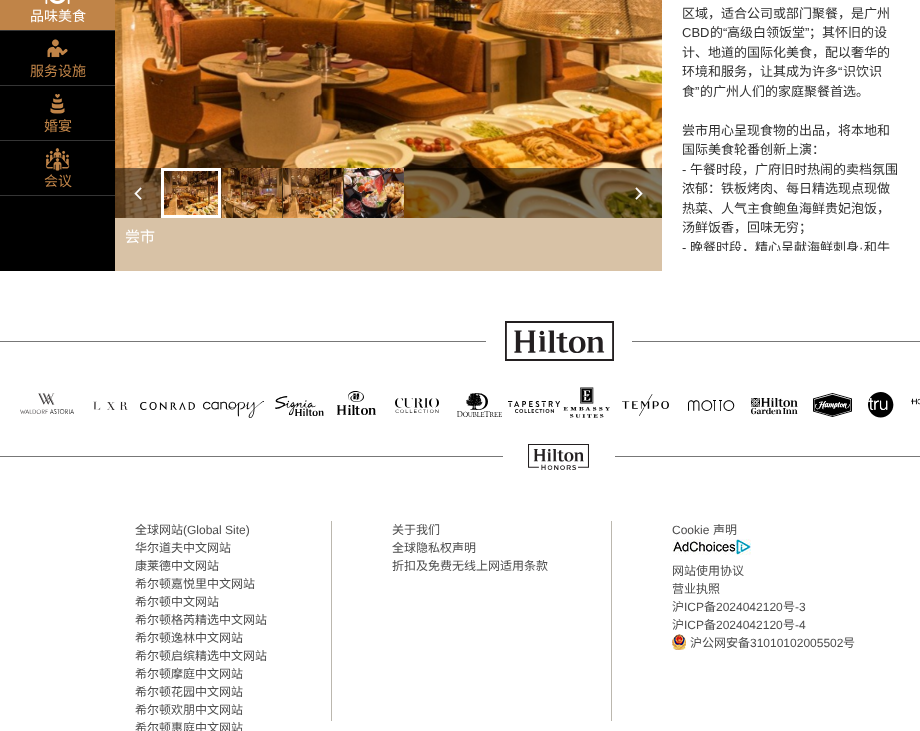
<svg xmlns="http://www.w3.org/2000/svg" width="920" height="731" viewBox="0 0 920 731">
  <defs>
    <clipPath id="clip1"><rect x="662" y="0" width="257" height="251"/></clipPath>
  </defs>
  <rect width="100%" height="100%" fill="rgb(255,255,255)"/>
  <rect x="0" y="31" width="115" height="240" fill="rgb(0,0,0)"/>
  <rect x="0" y="30" width="115" height="1" fill="rgb(53,53,53)"/>
  <rect x="0" y="0" width="115" height="30" fill="rgb(192,132,72)"/>
  <image x="45" y="0" width="25" height="5" href="pic1.png"/>
  <text x="30" y="21" font-family="Noto Sans CJK SC" font-size="14" fill="rgb(255,255,255)">品味美食</text>
  <rect x="0" y="85" width="115" height="1" fill="rgb(53,53,53)"/>
  <image x="47" y="39" width="21" height="19" href="pic2.png"/>
  <text x="30" y="76" font-family="Noto Sans CJK SC" font-size="14" fill="rgb(192,132,72)">服务设施</text>
  <rect x="0" y="140" width="115" height="1" fill="rgb(53,53,53)"/>
  <image x="50" y="94" width="15" height="20" href="pic3.png"/>
  <text x="44" y="131" font-family="Noto Sans CJK SC" font-size="14" fill="rgb(192,132,72)">婚宴</text>
  <rect x="0" y="195" width="115" height="1" fill="rgb(53,53,53)"/>
  <image x="45" y="148" width="25" height="23" href="pic4.png"/>
  <text x="44" y="186" font-family="Noto Sans CJK SC" font-size="14" fill="rgb(192,132,72)">会议</text>
  <image x="115" y="0" width="547" height="218" href="pic11.png"/>
  <rect x="115" y="168" width="547" height="50" fill="rgba(0,0,0,0.5)"/>
  <image x="134" y="187" width="8" height="13" href="pic5.png"/>
  <rect x="162.5" y="169.5" width="57" height="47" fill="none" stroke="rgb(255,255,255)" stroke-width="3"/>
  <image x="164" y="171" width="54" height="44" href="pic6.png"/>
  <image x="222" y="168" width="60" height="50" href="pic7.png"/>
  <image x="283" y="168" width="60" height="50" href="pic8.png"/>
  <image x="344" y="168" width="60" height="50" href="pic9.png"/>
  <image x="635" y="187" width="8" height="13" href="pic10.png"/>
  <rect x="115" y="218" width="547" height="53" fill="rgb(216,194,166)"/>
  <text x="125" y="242" font-family="Noto Sans CJK SC" font-size="15" fill="rgb(255,255,255)">尝市</text>
  <text x="682" y="18" font-family="Noto Sans CJK SC" font-size="13" fill="rgb(48,48,48)">区域，适合公司或部门聚餐，是广州</text>
  <text x="682" y="37" font-family="Liberation Sans" font-size="13" fill="rgb(48,48,48)">CBD</text>
  <text x="710" y="37" font-family="Noto Sans CJK SC" font-size="13" fill="rgb(48,48,48)">的</text>
  <text x="723" y="37" font-family="Liberation Sans" font-size="13" fill="rgb(48,48,48)">“</text>
  <text x="727" y="37" font-family="Noto Sans CJK SC" font-size="13" fill="rgb(48,48,48)">高级白领饭堂</text>
  <text x="805" y="37" font-family="Liberation Sans" font-size="13" fill="rgb(48,48,48)">”</text>
  <g font-family="Noto Sans CJK SC" font-size="13" fill="rgb(48,48,48)">
    <text x="809" y="37">；其怀旧的设</text>
    <text>
      <tspan x="682" y="57">计、地道的国际化美食，配以奢华的</tspan>
      <tspan x="682" y="76">环境和服务，让其成为许多</tspan>
    </text>
  </g>
  <text x="838" y="76" font-family="Liberation Sans" font-size="13" fill="rgb(48,48,48)">“</text>
  <g font-family="Noto Sans CJK SC" font-size="13" fill="rgb(48,48,48)">
    <text x="843" y="76">识饮识</text>
    <text x="682" y="96">食</text>
  </g>
  <text x="695" y="96" font-family="Liberation Sans" font-size="13" fill="rgb(48,48,48)">”</text>
  <g font-family="Noto Sans CJK SC" font-size="13" fill="rgb(48,48,48)">
    <text x="700" y="96">的广州人们的家庭聚餐首选。</text>
    <text>
      <tspan x="682" y="135">尝市用心呈现食物的出品，将本地和</tspan>
      <tspan x="682" y="154">国际美食轮番创新上演：</tspan>
    </text>
  </g>
  <text x="682" y="174" font-family="Liberation Sans" font-size="13" fill="rgb(48,48,48)">-</text>
  <g font-family="Noto Sans CJK SC" font-size="13" fill="rgb(48,48,48)">
    <text x="690" y="174">午餐时段，广府旧时热闹的卖档氛围</text>
    <text>
      <tspan x="682" y="193">浓郁：铁板烤肉、每日精选现点现做</tspan>
      <tspan x="682" y="213">热菜、人气主食鲍鱼海鲜贵妃泡饭，</tspan>
      <tspan x="682" y="232">汤鲜饭香，回味无穷；</tspan>
    </text>
  </g>
  <text x="682" y="252" font-family="Liberation Sans" font-size="13" fill="rgb(48,48,48)">-</text>
  <g clip-path="url(#clip1)">
    <text x="690" y="252" font-family="Noto Sans CJK SC" font-size="13" fill="rgb(48,48,48)">晚餐时段，精心呈献海鲜刺身</text>
  </g>
  <text x="859" y="252" font-family="Liberation Sans" font-size="13" fill="rgb(48,48,48)">·</text>
  <g clip-path="url(#clip1)">
    <text x="864" y="252" font-family="Noto Sans CJK SC" font-size="13" fill="rgb(48,48,48)">和牛</text>
  </g>
  <image x="0" y="321" width="920" height="149" href="pic12.png"/>
  <text x="135" y="534" font-family="Noto Sans CJK SC" font-size="12" fill="rgb(76,76,76)">全球网站</text>
  <text x="183" y="534" font-family="Liberation Sans" font-size="12" fill="rgb(76,76,76)">(Global Site)</text>
  <g font-family="Noto Sans CJK SC" font-size="12" fill="rgb(76,76,76)">
    <text>
      <tspan x="135" y="552">华尔道夫中文网站</tspan>
      <tspan x="135" y="570">康莱德中文网站</tspan>
      <tspan x="135" y="588">希尔顿嘉悦里中文网站</tspan>
      <tspan x="135" y="606">希尔顿中文网站</tspan>
      <tspan x="135" y="624">希尔顿格芮精选中文网站</tspan>
      <tspan x="135" y="642">希尔顿逸林中文网站</tspan>
      <tspan x="135" y="660">希尔顿启缤精选中文网站</tspan>
      <tspan x="135" y="678">希尔顿摩庭中文网站</tspan>
      <tspan x="135" y="696">希尔顿花园中文网站</tspan>
      <tspan x="135" y="714">希尔顿欢朋中文网站</tspan>
      <tspan x="135" y="732">希尔顿惠庭中文网站</tspan>
    </text>
  </g>
  <rect x="331" y="521" width="1" height="200" fill="rgb(187,183,174)"/>
  <g font-family="Noto Sans CJK SC" font-size="12" fill="rgb(76,76,76)">
    <text>
      <tspan x="392" y="534">关于我们</tspan>
      <tspan x="392" y="552">全球隐私权声明</tspan>
      <tspan x="392" y="570">折扣及免费无线上网适用条款</tspan>
    </text>
  </g>
  <rect x="611" y="521" width="1" height="200" fill="rgb(187,183,174)"/>
  <text x="672" y="534" font-family="Liberation Sans" font-size="12" fill="rgb(76,76,76)">Cookie</text>
  <text x="713" y="534" font-family="Noto Sans CJK SC" font-size="12" fill="rgb(76,76,76)">声明</text>
  <image x="672" y="539" width="79" height="16" href="pic13.png"/>
  <g font-family="Noto Sans CJK SC" font-size="12" fill="rgb(76,76,76)">
    <text>
      <tspan x="672" y="575">网站使用协议</tspan>
      <tspan x="672" y="593">营业执照</tspan>
      <tspan x="672" y="611">沪</tspan>
    </text>
  </g>
  <text x="684" y="611" font-family="Liberation Sans" font-size="12" fill="rgb(76,76,76)">ICP</text>
  <text x="704" y="611" font-family="Noto Sans CJK SC" font-size="12" fill="rgb(76,76,76)">备</text>
  <text x="716" y="611" font-family="Liberation Sans" font-size="12" fill="rgb(76,76,76)">2024042120</text>
  <text x="783" y="611" font-family="Noto Sans CJK SC" font-size="12" fill="rgb(76,76,76)">号</text>
  <text x="795" y="611" font-family="Liberation Sans" font-size="12" fill="rgb(76,76,76)">-3</text>
  <text x="672" y="629" font-family="Noto Sans CJK SC" font-size="12" fill="rgb(76,76,76)">沪</text>
  <text x="684" y="629" font-family="Liberation Sans" font-size="12" fill="rgb(76,76,76)">ICP</text>
  <text x="704" y="629" font-family="Noto Sans CJK SC" font-size="12" fill="rgb(76,76,76)">备</text>
  <text x="716" y="629" font-family="Liberation Sans" font-size="12" fill="rgb(76,76,76)">2024042120</text>
  <text x="783" y="629" font-family="Noto Sans CJK SC" font-size="12" fill="rgb(76,76,76)">号</text>
  <text x="795" y="629" font-family="Liberation Sans" font-size="12" fill="rgb(76,76,76)">-4</text>
  <image x="672" y="634" width="14" height="16" href="pic14.png"/>
  <text x="690" y="647" font-family="Noto Sans CJK SC" font-size="12" fill="rgb(76,76,76)">沪公网安备</text>
  <text x="750" y="647" font-family="Liberation Sans" font-size="12" fill="rgb(76,76,76)">31010102005502</text>
  <text x="843" y="647" font-family="Noto Sans CJK SC" font-size="12" fill="rgb(76,76,76)">号</text>
</svg>
